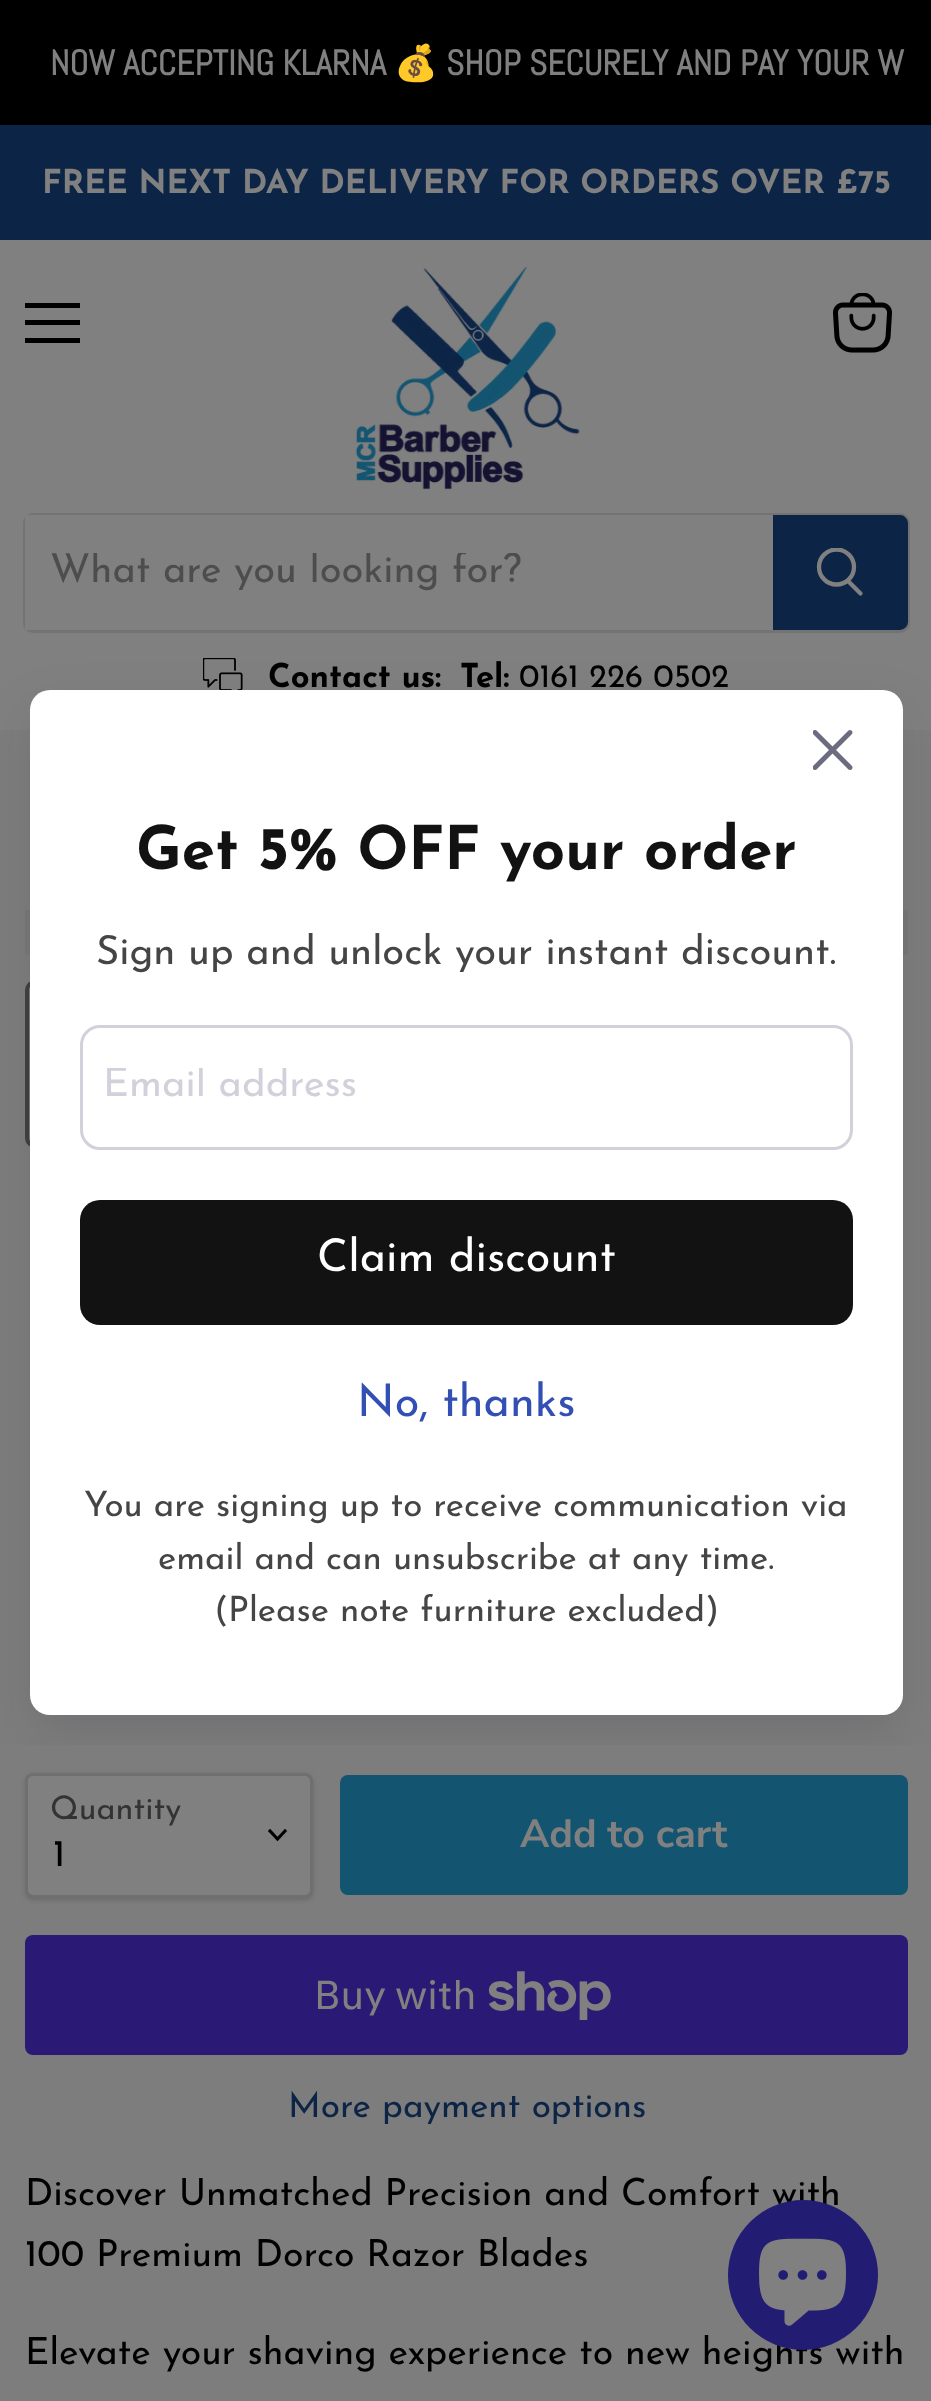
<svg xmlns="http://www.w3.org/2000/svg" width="931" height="2401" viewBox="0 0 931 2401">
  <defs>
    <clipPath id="clip1"><rect x="50" y="553" width="698" height="40"/></clipPath>
    <clipPath id="clip2"><rect x="815" y="548" width="50" height="52"/></clipPath>
    <clipPath id="clip3"><rect x="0" y="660" width="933" height="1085"/></clipPath>
    <clipPath id="clip4"><rect x="103" y="1068" width="727" height="40"/></clipPath>
  </defs>
  <rect width="100%" height="100%" fill="rgb(125,125,125)"/>
  <rect x="0" y="0" width="931" height="125" fill="rgb(0,0,0)"/>
  <text x="50" y="75" font-family="Abel" font-size="35.25" font-weight="bold" fill="rgb(128,128,128)">NOW ACCEPTING KLARNA</text>
  <text x="394" y="75" font-family="Noto Color Emoji" font-size="35.25" font-weight="bold" fill="rgb(128,128,128)">💰</text>
  <text x="446" y="75" font-family="Abel" font-size="35.25" font-weight="bold" fill="rgb(128,128,128)">SHOP SECURELY AND PAY YOUR W</text>
  <rect x="0" y="125" width="931" height="115" fill="rgb(12,36,70)"/>
  <text x="42" y="193" font-family="Josefin Sans" font-size="32.8" font-weight="bold" fill="rgb(128,128,128)">FREE NEXT DAY DELIVERY FOR ORDERS OVER £75</text>
  <rect x="0" y="240" width="931" height="490" fill="rgb(128,128,128)"/>
  <rect x="25" y="303" width="55" height="5" fill="rgb(0,0,0)"/>
  <rect x="25" y="320" width="55" height="5" fill="rgb(0,0,0)"/>
  <rect x="25" y="338" width="55" height="5" fill="rgb(0,0,0)"/>
  <image x="833" y="293" width="59" height="60" href="pic1.png"/>
  <image x="355" y="266" width="225" height="224" href="pic2.png"/>
  <rect x="24.5" y="514.5" width="884" height="117" rx="8.5" fill="none" stroke="rgba(63,63,63,0.2)" stroke-width="3"/>
  <rect x="25" y="515" width="748" height="115" fill="rgb(128,128,128)"/>
  <g clip-path="url(#clip1)">
    <text x="50" y="582" font-family="Josefin Sans" font-size="40" fill="rgb(77,77,77)">What are you looking for?</text>
  </g>
  <path d="M774.5 516.5H900C903.5 516.5 906.5 519.5 906.5 523V622C906.5 625.5 903.5 628.5 900 628.5H774.5Z" fill="rgb(12,36,70)" stroke="rgb(12,36,70)" stroke-width="3"/>
  <path d="M860.5 593.5L848.5 581.5" fill="none" stroke="rgb(128,128,128)" stroke-width="4.3" stroke-linecap="round"/>
  <g clip-path="url(#clip2)">
    <circle cx="836.5" cy="567" r="17.5" fill="none" stroke="rgb(128,128,128)" stroke-width="4.3"/>
  </g>
  <image x="203" y="658" width="40" height="32" href="pic3.png"/>
  <g font-family="Josefin Sans" font-size="32.8" font-weight="bold" fill="rgb(0,0,0)">
    <text x="268" y="687">Contact us:</text>
    <text x="460" y="687">Tel:</text>
  </g>
  <text x="519" y="687" font-family="Josefin Sans" font-size="32.8" fill="rgb(0,0,0)">0161 226 0502</text>
  <rect x="25" y="910" width="883" height="45" fill="rgb(120,120,120)"/>
  <rect x="27" y="982" width="164" height="164" rx="8" fill="none" stroke="rgb(65,65,65)" stroke-width="4"/>
  <rect x="25" y="1775" width="288" height="125" rx="8" fill="rgba(0,0,0,0.15)" filter="blur(2.5px)"/>
  <rect x="26.5" y="1774.5" width="285" height="122" rx="6.5" fill="rgb(128,128,128)" stroke="rgb(111,111,111)" stroke-width="3"/>
  <rect x="341.5" y="1776.5" width="565" height="117" rx="6.5" fill="rgb(19,85,112)" stroke="rgb(19,85,112)" stroke-width="3"/>
  <g clip-path="url(#clip3)">
    <rect x="30" y="710" width="873" height="1025" rx="20" fill="rgba(18,17,39,0.1)" filter="blur(25px)"/>
  </g>
  <rect x="30" y="690" width="873" height="1025" rx="20" fill="rgb(255,255,255)"/>
  <image x="813" y="730" width="40" height="40" href="pic4.png"/>
  <text x="136" y="869" font-family="Josefin Sans" font-size="60" font-weight="bold" fill="rgb(18,18,18)">Get 5% OFF your order</text>
  <text x="96" y="964" font-family="Josefin Sans" font-size="40" fill="rgb(69,69,69)">Sign up and unlock your instant discount.</text>
  <rect x="81.5" y="1026.5" width="770" height="122" rx="18.5" fill="none" stroke="rgb(209,209,219)" stroke-width="3"/>
  <g clip-path="url(#clip4)">
    <text x="103" y="1096" font-family="Josefin Sans" font-size="40" fill="rgb(209,209,219)">Email address</text>
  </g>
  <rect x="80" y="1200" width="773" height="125" rx="20" fill="rgb(18,18,18)"/>
  <text x="317" y="1271" font-family="Josefin Sans" font-size="45" fill="rgb(255,255,255)">Claim discount</text>
  <text x="357" y="1416" font-family="Josefin Sans" font-size="45" fill="rgb(51,79,180)">No, thanks</text>
  <g font-family="Josefin Sans" font-size="35" fill="rgb(69,69,69)">
    <text x="84" y="1516">You are signing up to receive communication via</text>
    <text x="158" y="1569">email and can unsubscribe at any time.</text>
    <text x="214" y="1621">(Please note furniture excluded)</text>
  </g>
  <text x="50" y="1819" font-family="Josefin Sans" font-size="32.5" fill="rgb(51,51,51)">Quantity</text>
  <path d="M277.5 1839L285 1831M277.5 1839L270 1831" fill="none" stroke="rgb(0,0,0)" stroke-width="3.1" stroke-linecap="square"/>
  <text x="53" y="1866" font-family="Josefin Sans" font-size="37.5" fill="rgb(0,0,0)">1</text>
  <text x="520" y="1847" font-family="Nunito Sans" font-size="39.5" font-weight="bold" fill="rgb(128,128,128)">Add to cart</text>
  <rect x="25" y="1935" width="883" height="120" rx="8" fill="rgb(42,26,118)"/>
  <text x="314" y="2009" font-family="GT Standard" font-size="40" fill="rgb(128,128,128)">Buy with</text>
  <image x="488" y="1971" width="123" height="49" href="pic5.png"/>
  <text x="288" y="2117" font-family="Josefin Sans" font-size="35.25" fill="rgb(12,36,70)">More payment options</text>
  <g font-family="Josefin Sans" font-size="37.5" fill="rgb(0,0,0)">
    <text>
      <tspan x="25" y="2205">Discover Unmatched Precision and Comfort with</tspan>
      <tspan x="25" y="2266">100 Premium Dorco Razor Blades</tspan>
    </text>
    <text x="25" y="2364">Elevate your shaving experience to new heights with</text>
  </g>
  <circle cx="803" cy="2275" r="75" fill="rgb(35,28,115)"/>
  <image x="759" y="2238" width="87" height="88" href="pic6.png"/>
</svg>
